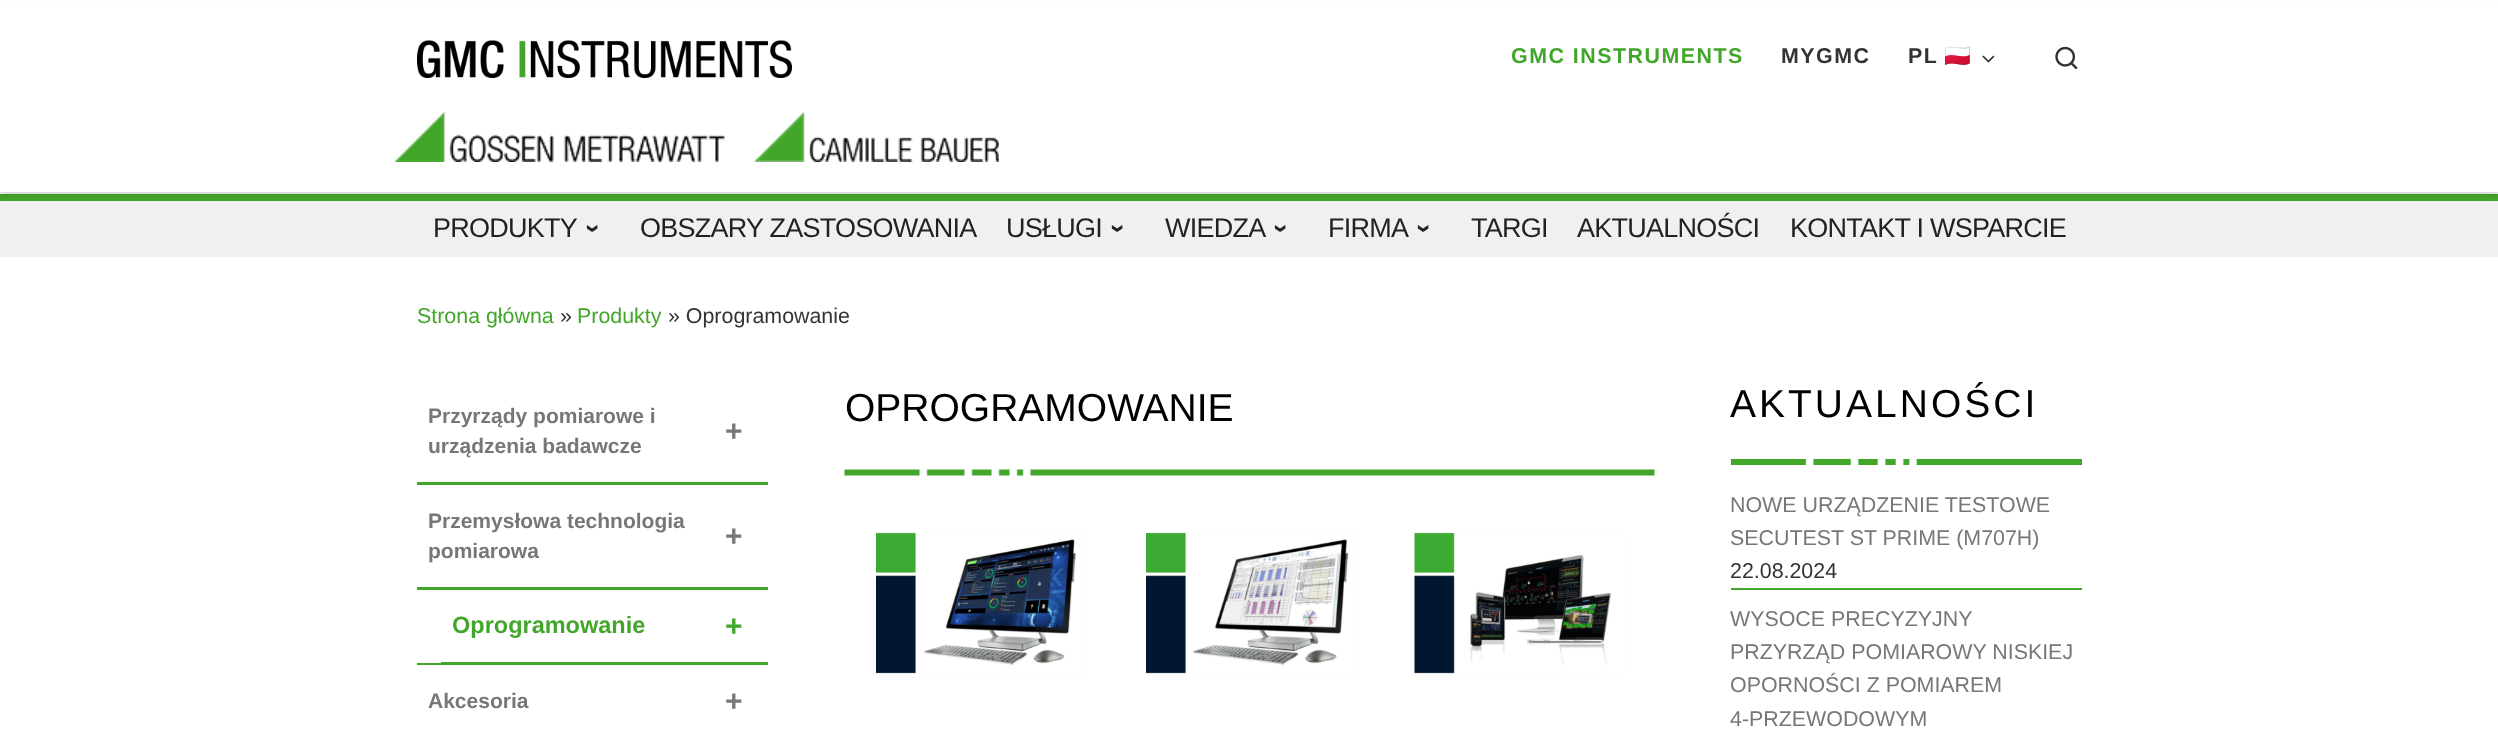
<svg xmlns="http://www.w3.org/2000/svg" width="2498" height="729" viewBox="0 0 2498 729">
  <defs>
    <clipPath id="clip1"><rect x="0" y="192" width="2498" height="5"/></clipPath>
  </defs>
  <rect width="100%" height="100%" fill="rgb(255,255,255)"/>
  <rect x="0" y="194" width="2498" height="7" fill="rgb(65,166,42)"/>
  <rect x="0" y="201" width="2498" height="56" fill="rgb(240,240,240)"/>
  <rect x="0" y="3" width="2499" height="194" fill="rgba(102,102,102,0.08)" filter="blur(1.5px)"/>
  <rect x="0" y="2" width="2498" height="190" fill="rgb(255,255,255)"/>
  <rect x="0" y="192" width="2498" height="2" fill="rgb(239,239,239)"/>
  <g clip-path="url(#clip1)">
    <rect x="0" y="0" width="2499" height="192" fill="rgba(0,0,0,0.2)" filter="blur(4px)"/>
  </g>
  <image x="417" y="40" width="375" height="38" href="pic1.png"/>
  <text x="1511" y="63" font-family="Liberation Sans" font-size="21.4" font-weight="bold" letter-spacing="1.5" fill="rgb(65,166,42)">GMC INSTRUMENTS</text>
  <g font-family="Liberation Sans" font-size="21.4" font-weight="bold" letter-spacing="1.5" fill="rgb(51,51,51)">
    <text x="1781" y="63">MYGMC</text>
    <text x="1908" y="63">PL</text>
  </g>
  <text x="1944" y="63" font-family="Noto Color Emoji" font-size="21.4" font-weight="bold" letter-spacing="1.5" fill="rgb(51,51,51)">🇵🇱</text>
  <image x="1982" y="55" width="13" height="8" href="pic2.png"/>
  <image x="2055" y="46" width="23" height="24" href="pic3.png"/>
  <image x="394" y="112" width="331" height="50" href="pic4.png"/>
  <image x="754" y="112" width="245" height="50" href="pic5.png"/>
  <text x="433" y="237" font-family="Liberation Sans" font-size="27" letter-spacing="-0.75" fill="rgb(34,34,34)">PRODUKTY</text>
  <text x="585" y="224" transform="rotate(90 585 224)" font-family="Liberation Sans" font-size="27" font-weight="bold" letter-spacing="-0.75" fill="rgb(34,34,34)">›</text>
  <g font-family="Liberation Sans" font-size="27" letter-spacing="-0.75" fill="rgb(34,34,34)">
    <text x="640" y="237">OBSZARY ZASTOSOWANIA</text>
    <text x="1006" y="237">USŁUGI</text>
  </g>
  <text x="1110" y="224" transform="rotate(90 1110 224)" font-family="Liberation Sans" font-size="27" font-weight="bold" letter-spacing="-0.75" fill="rgb(34,34,34)">›</text>
  <text x="1165" y="237" font-family="Liberation Sans" font-size="27" letter-spacing="-0.75" fill="rgb(34,34,34)">WIEDZA</text>
  <text x="1273" y="224" transform="rotate(90 1273 224)" font-family="Liberation Sans" font-size="27" font-weight="bold" letter-spacing="-0.75" fill="rgb(34,34,34)">›</text>
  <text x="1328" y="237" font-family="Liberation Sans" font-size="27" letter-spacing="-0.75" fill="rgb(34,34,34)">FIRMA</text>
  <text x="1416" y="224" transform="rotate(90 1416 224)" font-family="Liberation Sans" font-size="27" font-weight="bold" letter-spacing="-0.75" fill="rgb(34,34,34)">›</text>
  <g font-family="Liberation Sans" font-size="27" letter-spacing="-0.75" fill="rgb(34,34,34)">
    <text x="1471" y="237">TARGI</text>
    <text x="1577" y="237">AKTUALNOŚCI</text>
    <text x="1790" y="237">KONTAKT I WSPARCIE</text>
  </g>
  <text x="417" y="323" font-family="Liberation Sans" font-size="21.4" fill="rgb(65,166,42)">Strona główna</text>
  <text x="560" y="323" font-family="Liberation Sans" font-size="21.4" fill="rgb(51,51,51)">»</text>
  <text x="577" y="323" font-family="Liberation Sans" font-size="21.4" fill="rgb(65,166,42)">Produkty</text>
  <text x="668" y="323" font-family="Liberation Sans" font-size="21.4" fill="rgb(51,51,51)">» Oprogramowanie</text>
  <rect x="417" y="482" width="351" height="3" fill="rgb(65,166,42)"/>
  <text x="428" y="423" font-family="Liberation Sans" font-size="21" font-weight="bold" fill="rgb(119,119,119)">Przyrządy pomiarowe i</text>
  <text x="725" y="441" font-family="Liberation Sans" font-size="30" font-weight="bold" fill="rgb(119,119,119)">+</text>
  <text x="428" y="453" font-family="Liberation Sans" font-size="21" font-weight="bold" fill="rgb(119,119,119)">urządzenia badawcze</text>
  <rect x="417" y="587" width="351" height="3" fill="rgb(65,166,42)"/>
  <text x="428" y="528" font-family="Liberation Sans" font-size="21" font-weight="bold" fill="rgb(119,119,119)">Przemysłowa technologia</text>
  <text x="725" y="546" font-family="Liberation Sans" font-size="30" font-weight="bold" fill="rgb(119,119,119)">+</text>
  <text x="428" y="558" font-family="Liberation Sans" font-size="21" font-weight="bold" fill="rgb(119,119,119)">pomiarowa</text>
  <rect x="417" y="663" width="351" height="2" fill="rgb(65,166,42)"/>
  <rect x="441" y="662" width="327" height="1" fill="rgb(65,166,42)"/>
  <text x="452" y="633" font-family="Liberation Sans" font-size="23.5" font-weight="bold" fill="rgb(65,166,42)">Oprogramowanie</text>
  <text x="725" y="636" font-family="Liberation Sans" font-size="30" font-weight="bold" fill="rgb(65,166,42)">+</text>
  <text x="428" y="708" font-family="Liberation Sans" font-size="21" font-weight="bold" fill="rgb(119,119,119)">Akcesoria</text>
  <text x="725" y="711" font-family="Liberation Sans" font-size="30" font-weight="bold" fill="rgb(119,119,119)">+</text>
  <image x="844" y="469" width="811" height="7" href="pic6.png"/>
  <text x="845" y="421" font-family="Liberation Sans" font-size="39" fill="rgb(0,0,0)">OPROGRAMOWANIE</text>
  <image x="876" y="532" width="210" height="142" href="pic7.png"/>
  <image x="1146" y="532" width="210" height="142" href="pic8.png"/>
  <image x="1414" y="532" width="211" height="142" href="pic9.png"/>
  <image x="1731" y="459" width="351" height="6" href="pic10.png"/>
  <text x="1730" y="417" font-family="Liberation Sans" font-size="39" letter-spacing="3" fill="rgb(0,0,0)">AKTUALNOŚCI</text>
  <rect x="1731" y="588" width="351" height="2" fill="rgb(65,166,42)"/>
  <g font-family="Liberation Sans" font-size="21.4" fill="rgb(119,119,119)">
    <text>
      <tspan x="1730" y="512">NOWE URZĄDZENIE TESTOWE</tspan>
      <tspan x="1730" y="545">SECUTEST ST PRIME (M707H)</tspan>
    </text>
  </g>
  <text x="1730" y="578" font-family="Liberation Sans" font-size="21.4" fill="rgb(51,51,51)">22.08.2024</text>
  <g font-family="Liberation Sans" font-size="21.4" fill="rgb(119,119,119)">
    <text>
      <tspan x="1730" y="626">WYSOCE PRECYZYJNY</tspan>
      <tspan x="1730" y="659">PRZYRZĄD POMIAROWY NISKIEJ</tspan>
      <tspan x="1730" y="692">OPORNOŚCI Z POMIAREM</tspan>
      <tspan x="1730" y="726">4-PRZEWODOWYM</tspan>
    </text>
  </g>
</svg>
